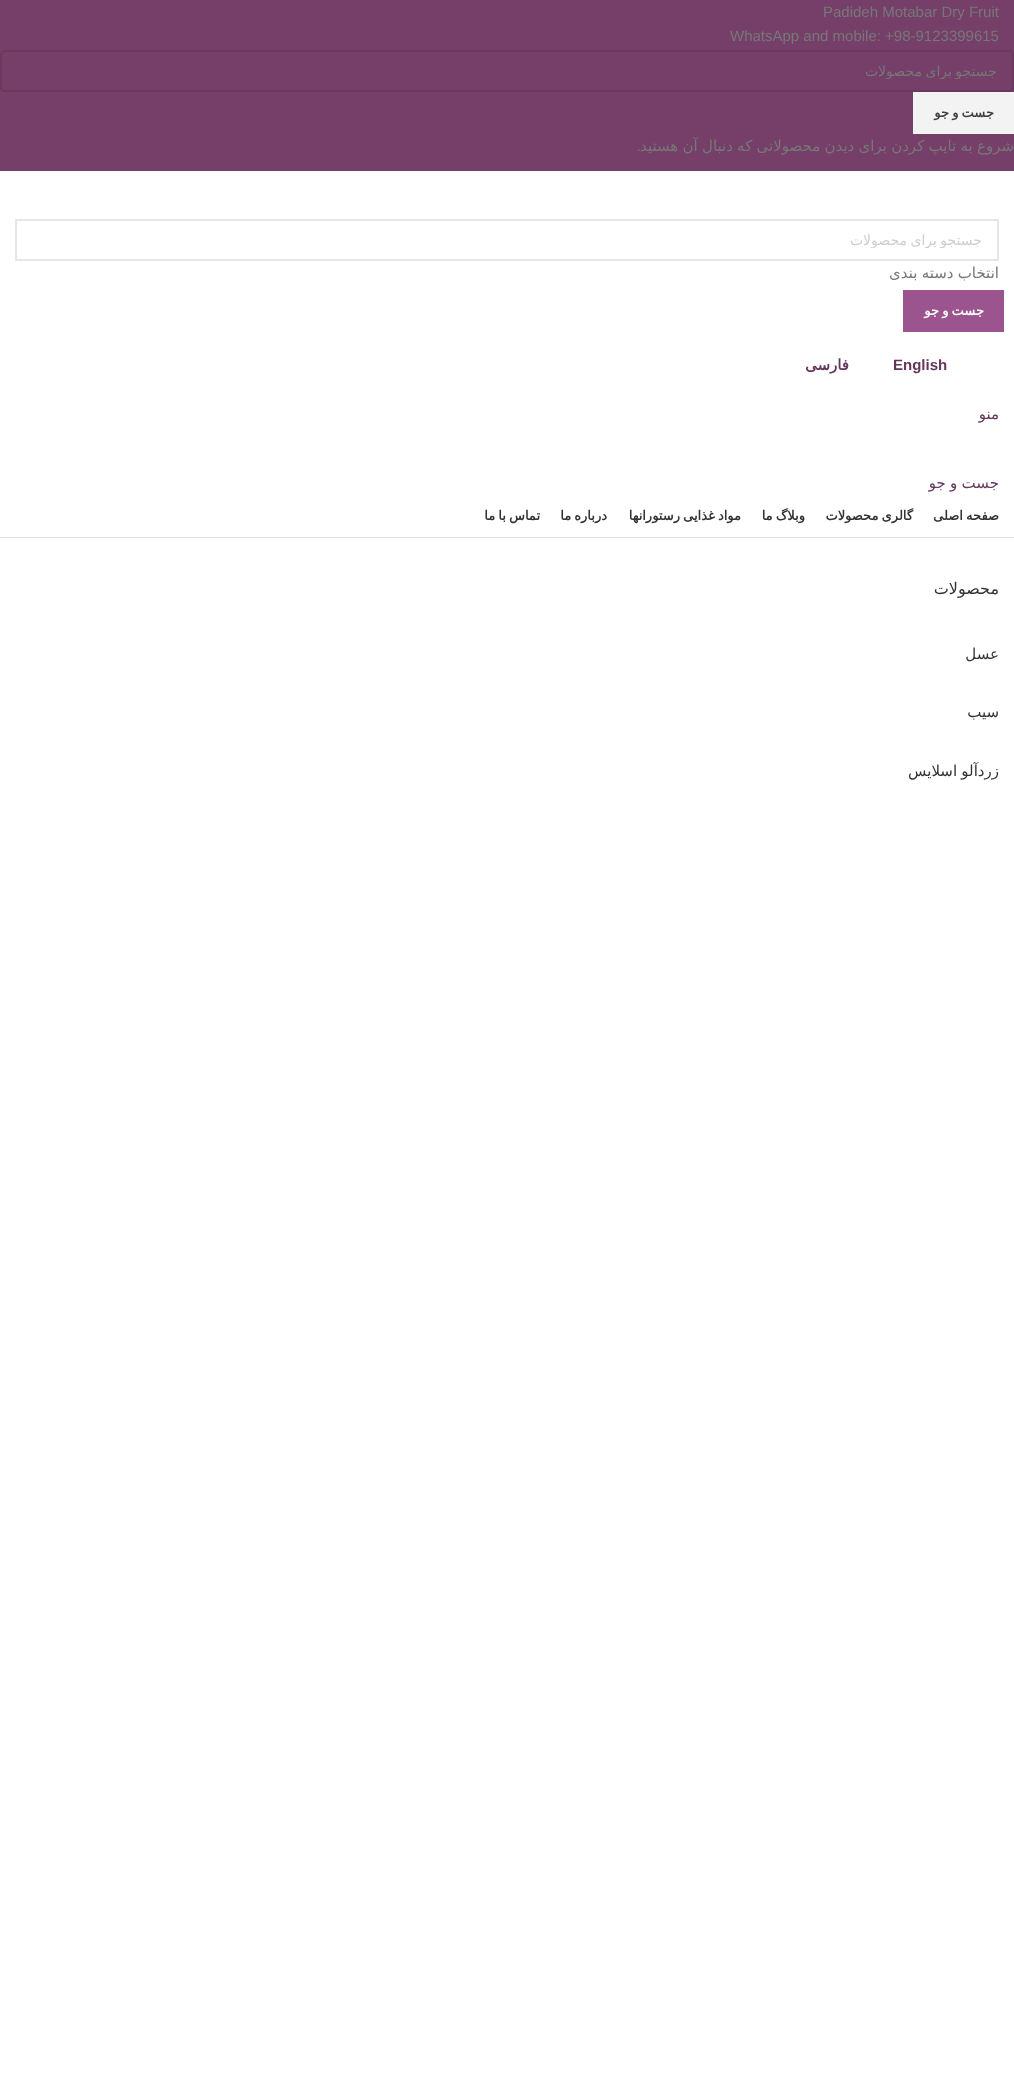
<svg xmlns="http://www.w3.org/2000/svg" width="1014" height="2092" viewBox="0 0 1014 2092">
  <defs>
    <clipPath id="clip1"><rect x="32" y="232" width="950" height="16"/></clipPath>
    <clipPath id="clip2"><rect x="17" y="63" width="980" height="16"/></clipPath>
  </defs>
  <rect width="100%" height="100%" fill="rgb(255,255,255)"/>
  <rect x="0" y="0" width="1014" height="171" fill="rgb(117,63,106)"/>
  <g font-family="Liberation Sans" font-size="15" fill="rgb(119,119,119)">
    <text x="823" y="17">Padideh Motabar Dry Fruit</text>
    <text x="730" y="41">WhatsApp and mobile: +98-9123399615</text>
  </g>
  <rect x="16" y="220" width="982" height="40" fill="none" stroke="rgb(230,230,230)" stroke-width="2"/>
  <g clip-path="url(#clip1)">
    <text x="982" y="245" word-spacing="-1" font-family="DejaVu Sans" font-size="14" direction="rtl" fill="rgb(207,204,204)">جستجو برای محصولات</text>
  </g>
  <text x="999" y="278" word-spacing="-0.5" font-family="DejaVu Sans" font-size="15" direction="rtl" fill="rgb(119,119,119)">انتخاب دسته بندی</text>
  <rect x="903" y="290" width="101" height="42" fill="rgb(155,84,141)"/>
  <text x="984" y="315" word-spacing="-1" font-family="DejaVu Sans" font-size="13" font-weight="bold" direction="rtl" fill="rgb(255,255,255)">جست و جو</text>
  <text x="893" y="370" font-family="Liberation Sans" font-size="15" font-weight="bold" fill="rgb(101,54,90)">English</text>
  <text x="849" y="370" font-family="DejaVu Sans" font-size="15" font-weight="bold" direction="rtl" fill="rgb(101,54,90)">فارسی</text>
  <g font-family="DejaVu Sans" font-size="15" direction="rtl" fill="rgb(101,54,90)">
    <text x="999" y="419">منو</text>
    <text x="999" y="488" word-spacing="-0.5">جست و جو</text>
  </g>
  <rect x="0" y="537" width="1014" height="1" fill="rgb(226,225,232)"/>
  <g font-family="DejaVu Sans" font-size="13" font-weight="bold" direction="rtl" fill="rgb(51,51,51)">
    <text x="999" y="520" word-spacing="-1">صفحه اصلی</text>
    <text x="913" y="520" word-spacing="-1">گالری محصولات</text>
    <text x="805" y="520" word-spacing="-1">وبلاگ ما</text>
    <text x="741" y="520" word-spacing="-1">مواد غذایی رستورانها</text>
    <text x="607" y="520" word-spacing="-1">درباره ما</text>
    <text x="540" y="520" word-spacing="-1">تماس با ما</text>
  </g>
  <text x="999" y="594" font-family="DejaVu Sans" font-size="16" direction="rtl" fill="rgb(51,51,51)">محصولات</text>
  <g font-family="DejaVu Sans" font-size="15" direction="rtl" fill="rgb(51,51,51)">
    <text x="999" y="659">عسل</text>
    <text x="999" y="717">سیب</text>
    <text x="999" y="776" word-spacing="-0.5">زردآلو اسلایس</text>
  </g>
  <rect x="1" y="51" width="1012" height="40" rx="4" fill="none" stroke="rgb(105,57,95)" stroke-width="2"/>
  <g clip-path="url(#clip2)">
    <text x="997" y="76" word-spacing="-1" font-family="DejaVu Sans" font-size="14" direction="rtl" fill="rgb(119,119,119)">جستجو برای محصولات</text>
  </g>
  <rect x="913" y="92" width="101" height="42" fill="rgb(243,243,243)"/>
  <text x="994" y="117" word-spacing="-1" font-family="DejaVu Sans" font-size="13" font-weight="bold" direction="rtl" fill="rgb(62,62,62)">جست و جو</text>
  <text x="1014" y="151" word-spacing="-0.5" font-family="DejaVu Sans" font-size="15" direction="rtl" fill="rgb(119,119,119)">شروع به تایپ کردن برای دیدن محصولاتی که دنبال آن هستید</text>
  <text x="641" y="151" font-family="Liberation Sans" font-size="15" direction="rtl" fill="rgb(119,119,119)">.</text>
</svg>
